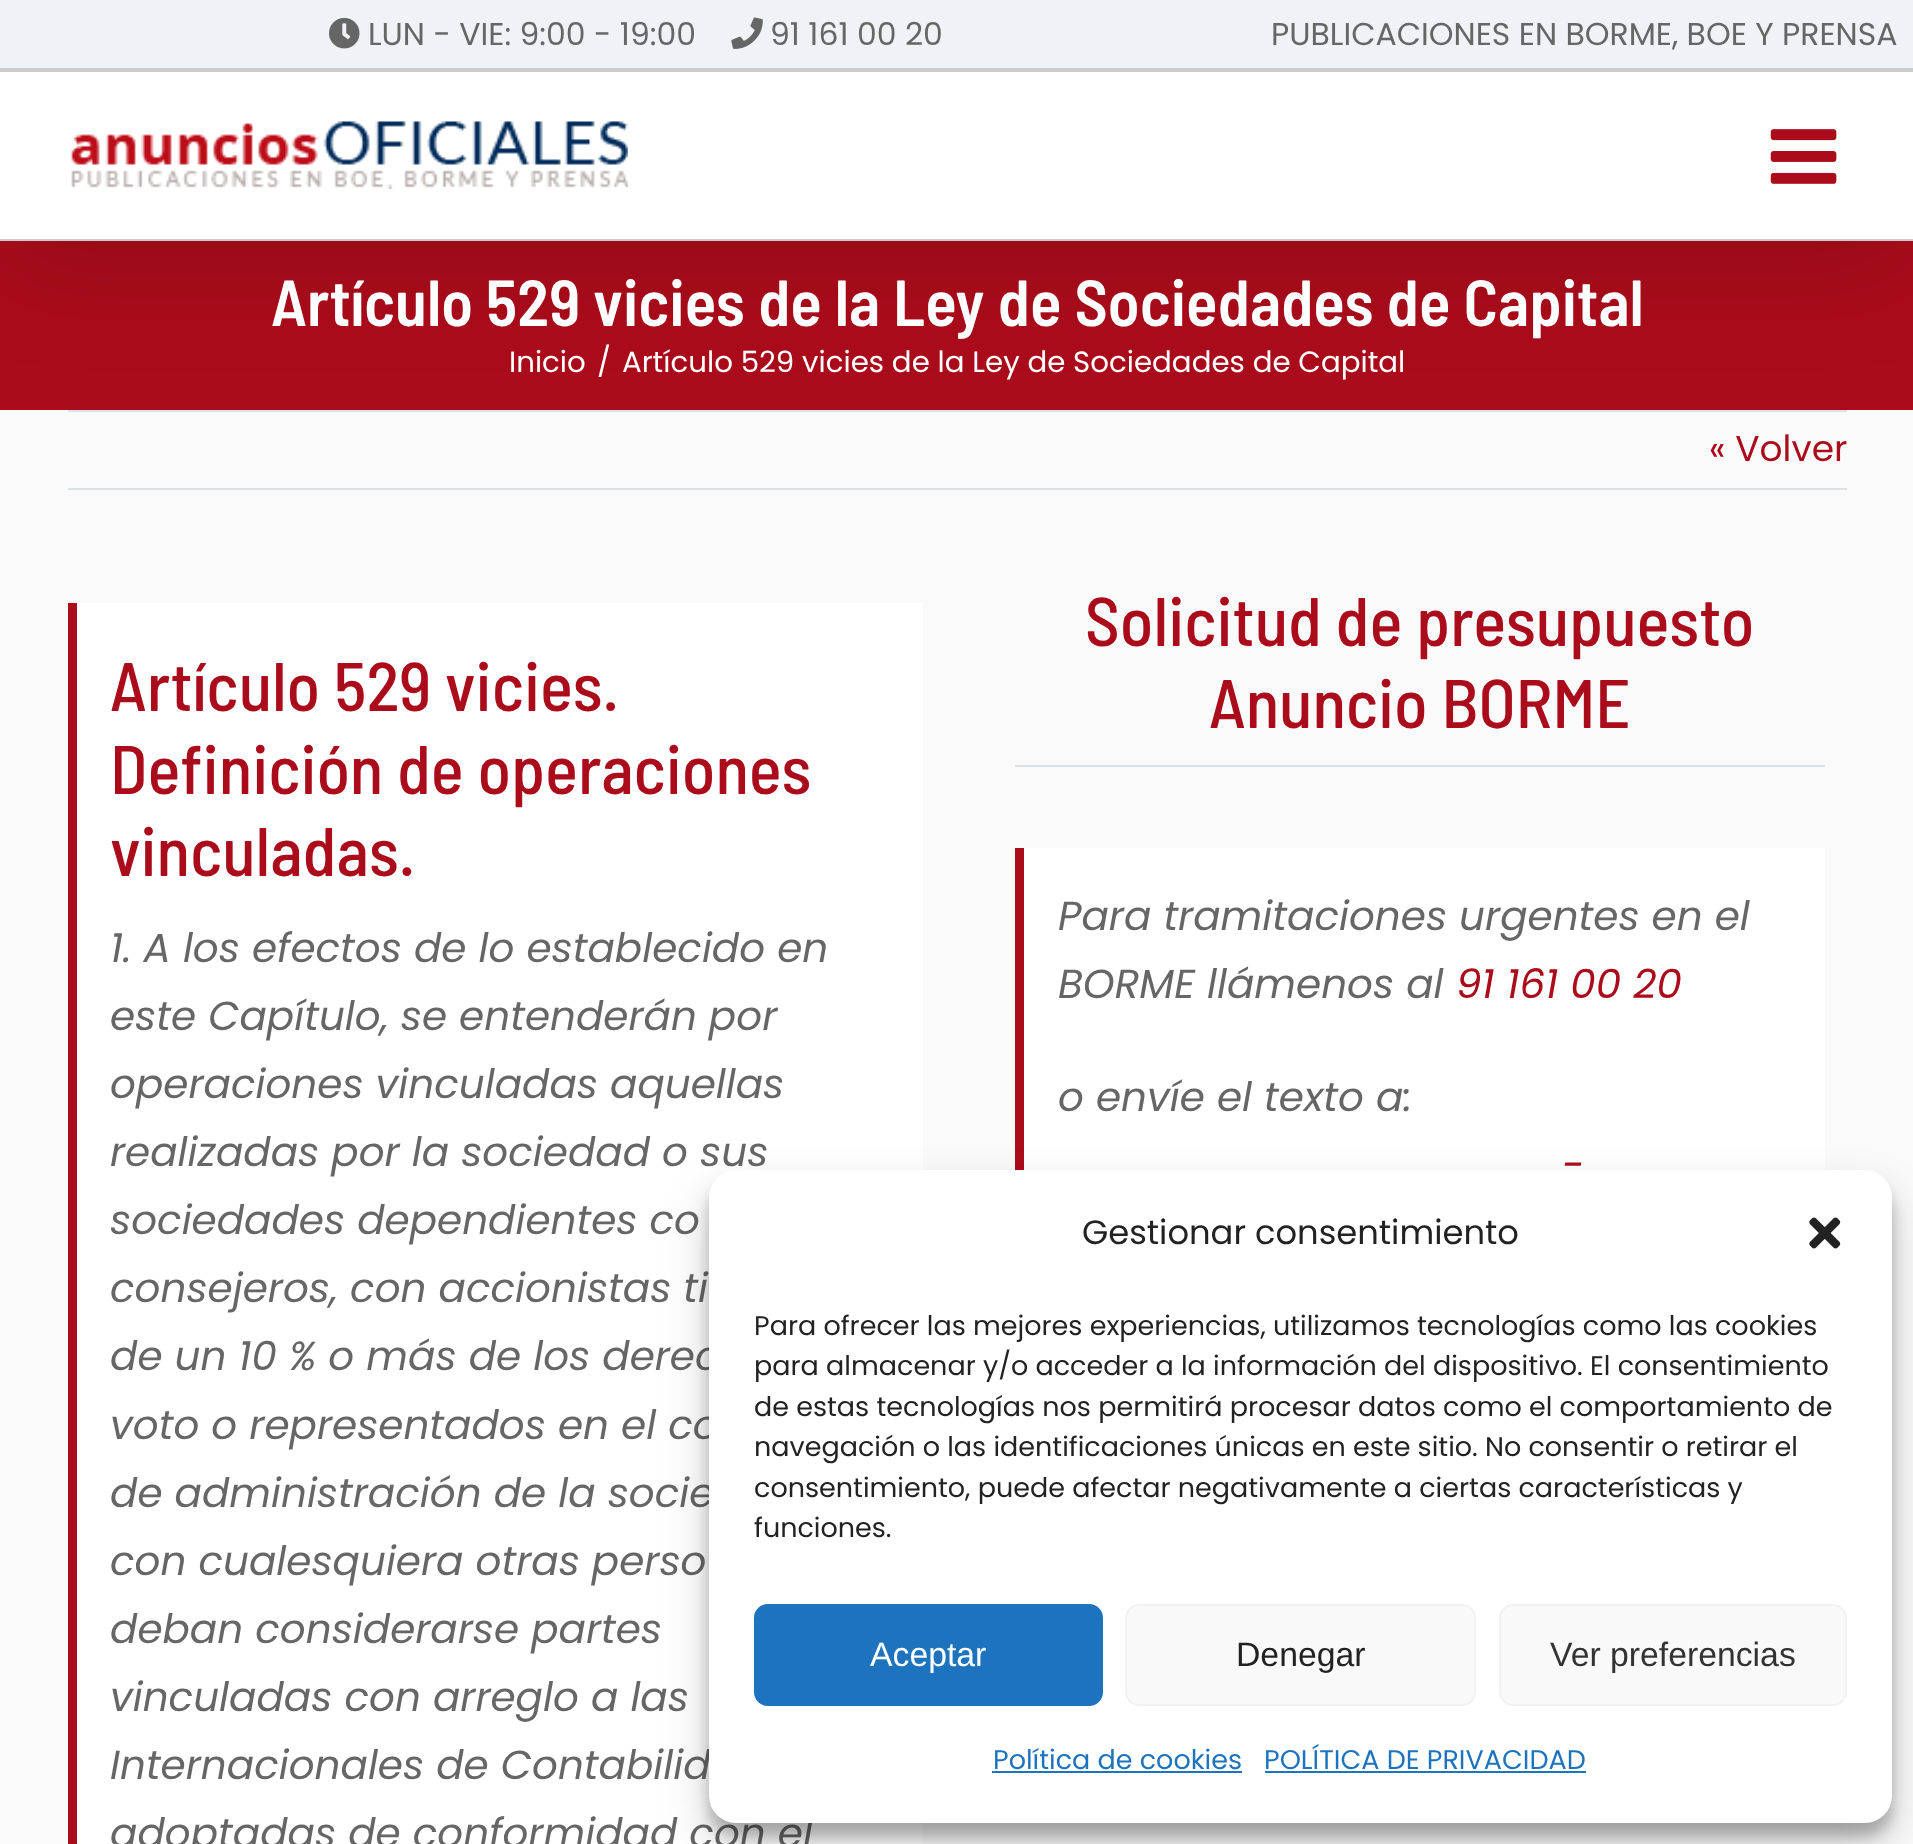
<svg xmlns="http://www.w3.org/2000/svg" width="1913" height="1844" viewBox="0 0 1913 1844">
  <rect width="100%" height="100%" fill="rgb(171,12,27)"/>
  <rect x="0" y="410" width="1913" height="1434" fill="rgb(250,250,250)"/>
  <rect x="68" y="410" width="1779" height="2" fill="rgb(219,226,234)"/>
  <rect x="5" y="27" width="1905" height="232" fill="rgba(0,0,0,0.14)" filter="blur(56px)"/>
  <rect x="0" y="0" width="1913" height="68" fill="rgb(240,242,245)"/>
  <rect x="0" y="68" width="1913" height="4" fill="rgb(204,204,204)"/>
  <image x="329" y="17" width="31" height="32" href="pic1.png"/>
  <text x="368" y="45" font-family="Poppins" font-size="31.5" fill="rgb(102,102,102)">LUN - VIE: 9:00 - 19:00</text>
  <image x="731" y="17" width="32" height="32" href="pic2.png"/>
  <g font-family="Poppins" font-size="31.5" fill="rgb(102,102,102)">
    <text x="770" y="45">91 161 00 20</text>
    <text x="1271" y="45">PUBLICACIONES EN BORME, BOE Y PRENSA</text>
  </g>
  <rect x="0" y="72" width="1913" height="167" fill="rgb(255,255,255)"/>
  <rect x="0" y="239" width="1913" height="2" fill="rgb(204,204,204)"/>
  <image x="71" y="121" width="557" height="68" href="pic3.png"/>
  <image x="1770" y="129" width="67" height="55" href="pic4.png"/>
  <text x="271" y="326" font-family="Barlow Semi Condensed" font-size="65.05" font-weight="600" fill="rgb(255,255,255)">Artículo 529 vicies de la Ley de Sociedades de Capital</text>
  <g font-family="Poppins" font-size="29.25" fill="rgb(255,255,255)">
    <text x="509" y="372">Inicio</text>
    <text x="597" y="372">/</text>
    <text x="622" y="372">Artículo 529 vicies de la Ley de Sociedades de Capital</text>
  </g>
  <rect x="68" y="488" width="1779" height="2" fill="rgb(219,226,234)"/>
  <text x="1709" y="461" font-family="Poppins" font-size="36" fill="rgb(171,12,27)">« Volver</text>
  <rect x="77" y="603" width="846" height="1241" fill="rgb(255,255,255)"/>
  <rect x="68" y="603" width="9" height="1241" fill="rgb(171,12,27)"/>
  <g font-family="Barlow Semi Condensed" font-size="68.75" font-weight="500" fill="rgb(171,12,27)">
    <text>
      <tspan x="110" y="711">Artículo 529 vicies.</tspan>
      <tspan x="110" y="794">Definición de operaciones</tspan>
      <tspan x="110" y="876">vinculadas.</tspan>
    </text>
  </g>
  <g font-family="Poppins" font-size="40.5" font-style="italic" fill="rgb(102,102,102)">
    <text>
      <tspan x="110" y="962">1. A los efectos de lo establecido en</tspan>
      <tspan x="110" y="1030">este Capítulo, se entenderán por</tspan>
      <tspan x="110" y="1098">operaciones vinculadas aquellas</tspan>
      <tspan x="110" y="1166">realizadas por la sociedad o sus</tspan>
      <tspan x="110" y="1234">sociedades dependientes co</tspan>
      <tspan x="110" y="1302">consejeros, con accionistas ti</tspan>
      <tspan x="110" y="1370">de un 10 % o más de los derec</tspan>
      <tspan x="110" y="1439">voto o representados en el co</tspan>
      <tspan x="110" y="1507">de administración de la socie</tspan>
      <tspan x="110" y="1575">con cualesquiera otras perso</tspan>
      <tspan x="110" y="1643">deban considerarse partes</tspan>
      <tspan x="110" y="1711">vinculadas con arreglo a las</tspan>
      <tspan x="110" y="1779">Internacionales de Contabilid</tspan>
      <tspan x="110" y="1847">adoptadas de conformidad con el</tspan>
    </text>
  </g>
  <rect x="1015" y="765" width="810" height="2" fill="rgb(219,226,234)"/>
  <g font-family="Barlow Semi Condensed" font-size="68.75" font-weight="500" fill="rgb(171,12,27)">
    <text x="1085" y="646">Solicitud de presupuesto</text>
    <text x="1209" y="728">Anuncio BORME</text>
  </g>
  <rect x="1024" y="848" width="801" height="322" fill="rgb(255,255,255)"/>
  <rect x="1015" y="848" width="9" height="322" fill="rgb(171,12,27)"/>
  <g font-family="Poppins" font-size="40.5" font-style="italic" fill="rgb(102,102,102)">
    <text>
      <tspan x="1058" y="930">Para tramitaciones urgentes en el</tspan>
      <tspan x="1058" y="998">BORME llámenos al</tspan>
    </text>
  </g>
  <text x="1456" y="998" font-family="Poppins" font-size="40.5" font-style="italic" fill="rgb(171,12,27)">91 161 00 20</text>
  <text x="1058" y="1111" font-family="Poppins" font-size="40.5" font-style="italic" fill="rgb(102,102,102)">o envíe el texto a:</text>
  <text x="1562" y="1179" font-family="Poppins" font-size="40.5" font-style="italic" fill="rgb(171,12,27)">-</text>
  <rect x="709" y="1184" width="1183" height="652" rx="27" fill="rgba(0,0,0,0.23)" filter="blur(7px)"/>
  <rect x="709" y="1193" width="1183" height="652" rx="27" fill="rgba(0,0,0,0.19)" filter="blur(22.5px)"/>
  <rect x="709" y="1170" width="1183" height="653" rx="27" fill="rgb(255,255,255)"/>
  <text x="1082" y="1244" font-family="Poppins" font-size="33.75" fill="rgb(34,34,34)">Gestionar consentimiento</text>
  <image x="1809" y="1217" width="32" height="32" href="pic5.png"/>
  <g font-family="Poppins" font-size="27" fill="rgb(34,34,34)">
    <text>
      <tspan x="754" y="1335">Para ofrecer las mejores experiencias, utilizamos tecnologías como las cookies</tspan>
      <tspan x="754" y="1375">para almacenar y/o acceder a la información del dispositivo. El consentimiento</tspan>
      <tspan x="754" y="1416">de estas tecnologías nos permitirá procesar datos como el comportamiento de</tspan>
      <tspan x="754" y="1456">navegación o las identificaciones únicas en este sitio. No consentir o retirar el</tspan>
      <tspan x="754" y="1497">consentimiento, puede afectar negativamente a ciertas características y</tspan>
      <tspan x="754" y="1537">funciones.</tspan>
    </text>
  </g>
  <rect x="755" y="1605" width="347" height="100" rx="13" fill="rgb(30,115,190)" stroke="rgb(30,115,190)" stroke-width="2"/>
  <text x="870" y="1666" font-family="Liberation Sans" font-size="33.75" fill="rgb(255,255,255)">Aceptar</text>
  <rect x="1126" y="1605" width="349" height="100" rx="13" fill="rgb(249,249,249)" stroke="rgb(242,242,242)" stroke-width="2"/>
  <text x="1236" y="1666" font-family="Liberation Sans" font-size="33.75" fill="rgb(34,34,34)">Denegar</text>
  <rect x="1500" y="1605" width="346" height="100" rx="13" fill="rgb(249,249,249)" stroke="rgb(242,242,242)" stroke-width="2"/>
  <text x="1550" y="1666" font-family="Liberation Sans" font-size="33.75" fill="rgb(51,51,51)">Ver preferencias</text>
  <text x="993" y="1769" font-family="Poppins" font-size="27" fill="rgb(30,115,190)">Política de cookies</text>
  <rect x="992" y="1771" width="250" height="2" fill="rgb(30,115,190)"/>
  <text x="1264" y="1769" font-family="Poppins" font-size="27" fill="rgb(30,115,190)">POLÍTICA DE PRIVACIDAD</text>
  <rect x="1265" y="1771" width="321" height="2" fill="rgb(30,115,190)"/>
</svg>
